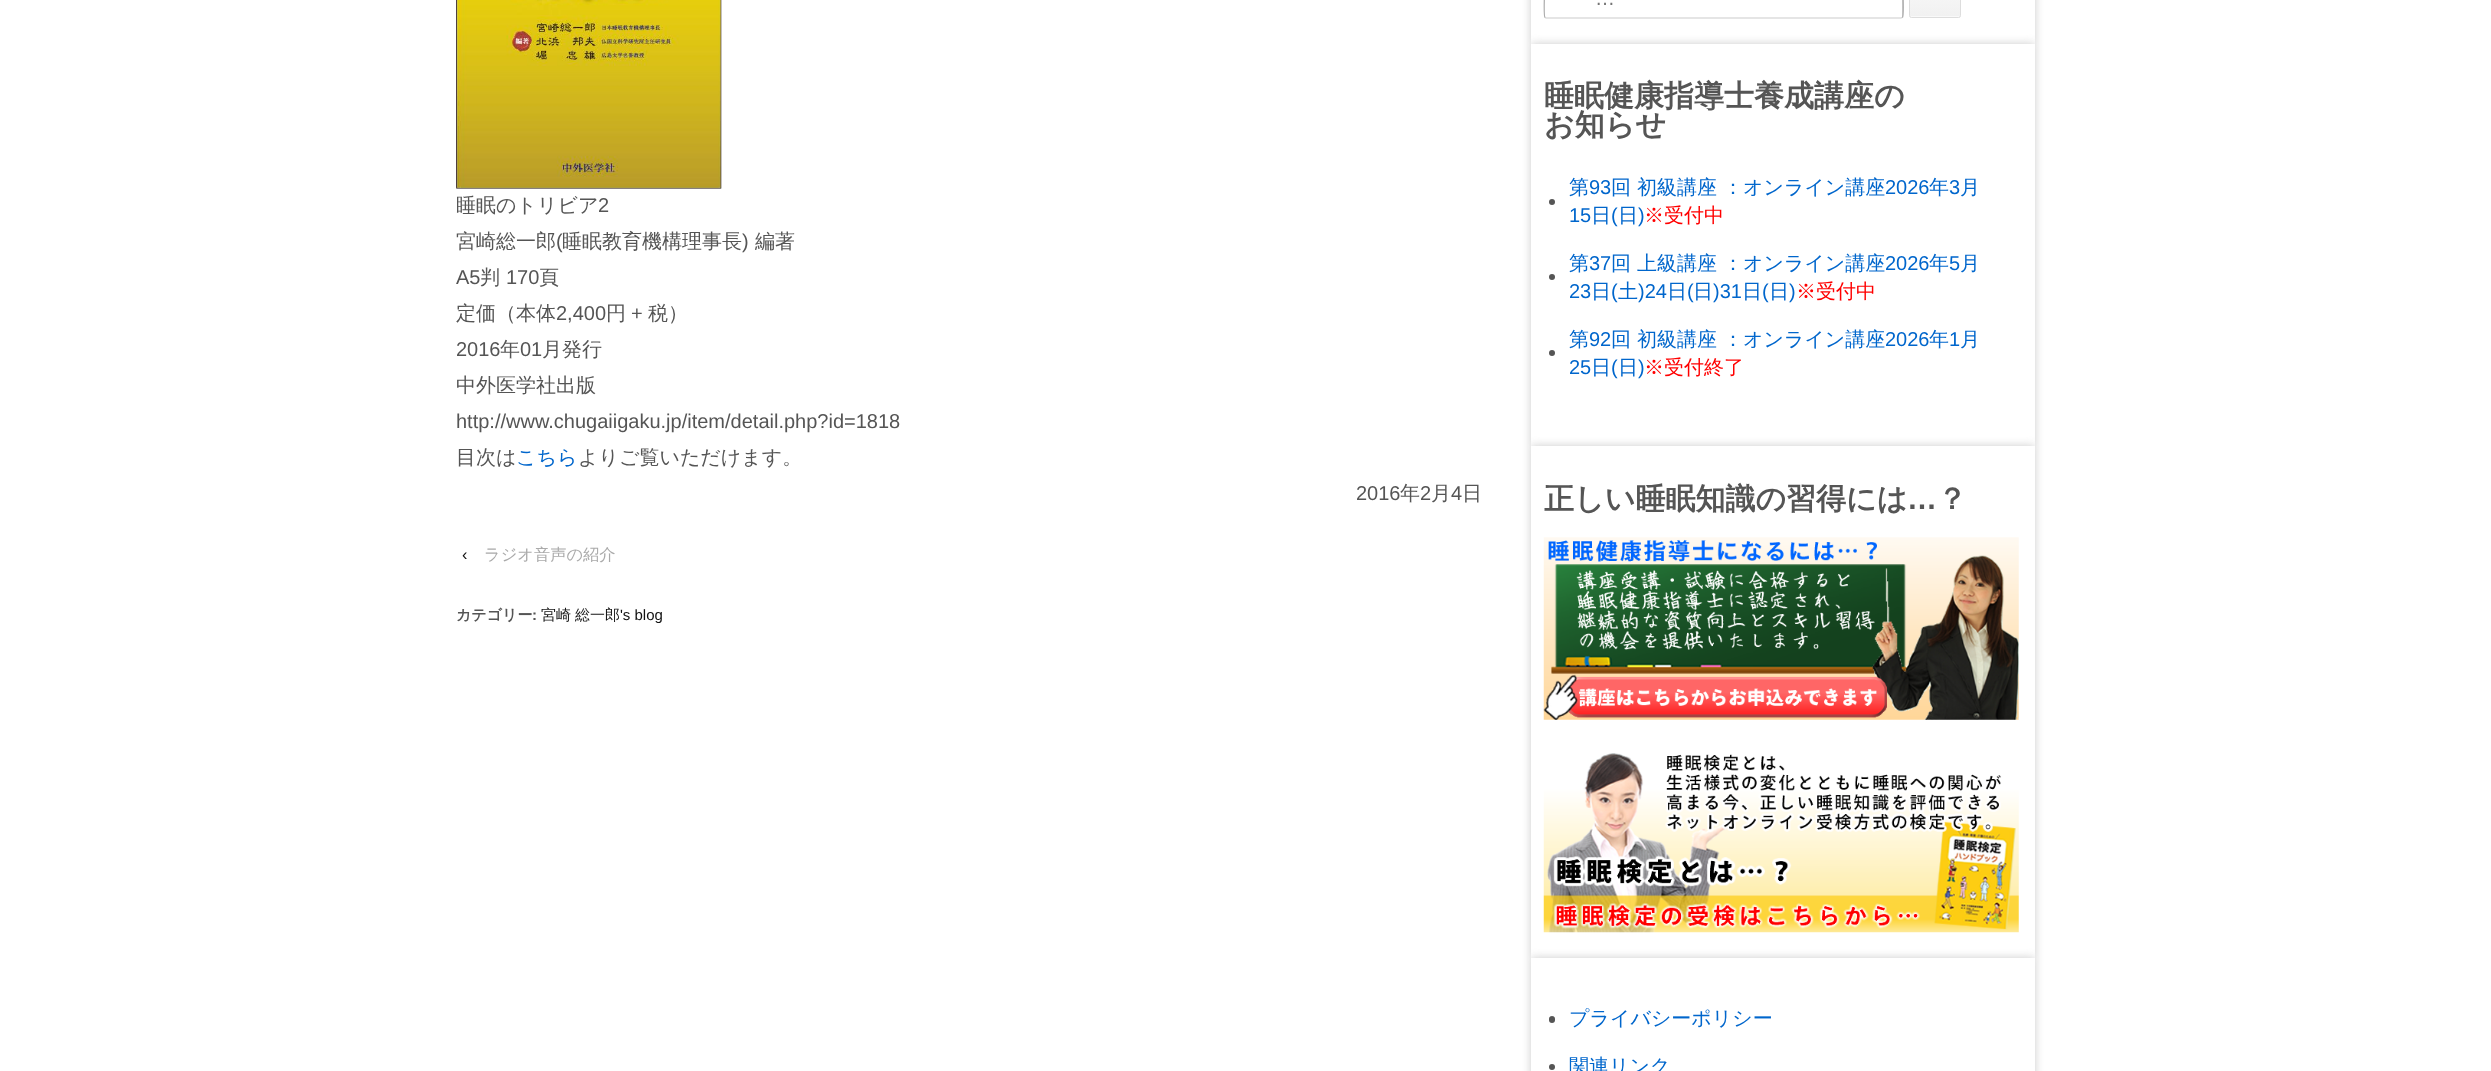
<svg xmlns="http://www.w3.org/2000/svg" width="2491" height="1071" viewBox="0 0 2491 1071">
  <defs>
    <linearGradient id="g1" gradientUnits="userSpaceOnUse" x1="1935" y1="-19" x2="1935" y2="16"><stop offset="0" stop-color="rgb(249,249,249)"/><stop offset="1" stop-color="rgb(241,241,241)"/></linearGradient>
  </defs>
  <rect width="100%" height="100%" fill="rgb(255,255,255)"/>
  <image x="456" y="0" width="266" height="189" href="pic1.png"/>
  <text x="456" y="212" font-family="WenQuanYi Zen Hei" font-size="20" font-weight="500" fill="rgb(85,85,85)">睡眠のトリビア</text>
  <text x="598" y="212" font-family="Liberation Sans" font-size="20" fill="rgb(85,85,85)">2</text>
  <text x="456" y="248" font-family="WenQuanYi Zen Hei" font-size="20" font-weight="500" fill="rgb(85,85,85)">宮崎総一郎</text>
  <text x="556" y="248" font-family="Liberation Sans" font-size="20" fill="rgb(85,85,85)">(</text>
  <text x="562" y="248" font-family="WenQuanYi Zen Hei" font-size="20" font-weight="500" fill="rgb(85,85,85)">睡眠教育機構理事長</text>
  <text x="742" y="248" font-family="Liberation Sans" font-size="20" fill="rgb(85,85,85)">)</text>
  <text x="755" y="248" font-family="WenQuanYi Zen Hei" font-size="20" font-weight="500" fill="rgb(85,85,85)">編著</text>
  <text x="456" y="284" font-family="Liberation Sans" font-size="20" fill="rgb(85,85,85)">A5</text>
  <text x="480" y="284" font-family="WenQuanYi Zen Hei" font-size="20" font-weight="500" fill="rgb(85,85,85)">判</text>
  <text x="506" y="284" font-family="Liberation Sans" font-size="20" fill="rgb(85,85,85)">170</text>
  <g font-family="WenQuanYi Zen Hei" font-size="20" font-weight="500" fill="rgb(85,85,85)">
    <text x="539" y="284">頁</text>
    <text x="456" y="320">定価（本体</text>
  </g>
  <text x="556" y="320" font-family="Liberation Sans" font-size="20" fill="rgb(85,85,85)">2,400</text>
  <text x="606" y="320" font-family="WenQuanYi Zen Hei" font-size="20" font-weight="500" fill="rgb(85,85,85)">円</text>
  <text x="631" y="320" font-family="Liberation Sans" font-size="20" fill="rgb(85,85,85)">+</text>
  <text x="648" y="320" font-family="WenQuanYi Zen Hei" font-size="20" font-weight="500" fill="rgb(85,85,85)">税）</text>
  <text x="456" y="356" font-family="Liberation Sans" font-size="20" fill="rgb(85,85,85)">2016</text>
  <text x="500" y="356" font-family="WenQuanYi Zen Hei" font-size="20" font-weight="500" fill="rgb(85,85,85)">年</text>
  <text x="520" y="356" font-family="Liberation Sans" font-size="20" fill="rgb(85,85,85)">01</text>
  <g font-family="WenQuanYi Zen Hei" font-size="20" font-weight="500" fill="rgb(85,85,85)">
    <text x="542" y="356">月発行</text>
    <text x="456" y="392">中外医学社出版</text>
  </g>
  <text x="456" y="428" font-family="Liberation Sans" font-size="20" fill="rgb(85,85,85)">http://www.chugaiigaku.jp/item/detail.php?id=1818</text>
  <text x="456" y="464" font-family="WenQuanYi Zen Hei" font-size="20" font-weight="500" fill="rgb(85,85,85)">目次は</text>
  <text x="516" y="464" font-family="WenQuanYi Zen Hei" font-size="20" font-weight="500" fill="rgb(0,102,204)">こちら</text>
  <text x="578" y="464" font-family="WenQuanYi Zen Hei" font-size="20" font-weight="500" fill="rgb(85,85,85)">よりご覧いただけます。</text>
  <text x="1356" y="500" font-family="Liberation Sans" font-size="20" fill="rgb(85,85,85)">2016</text>
  <text x="1400" y="500" font-family="WenQuanYi Zen Hei" font-size="20" font-weight="500" fill="rgb(85,85,85)">年</text>
  <text x="1420" y="500" font-family="Liberation Sans" font-size="20" fill="rgb(85,85,85)">2</text>
  <text x="1431" y="500" font-family="WenQuanYi Zen Hei" font-size="20" font-weight="500" fill="rgb(85,85,85)">月</text>
  <text x="1451" y="500" font-family="Liberation Sans" font-size="20" fill="rgb(85,85,85)">4</text>
  <text x="1462" y="500" font-family="WenQuanYi Zen Hei" font-size="20" font-weight="500" fill="rgb(85,85,85)">日</text>
  <text x="462" y="560" font-family="Liberation Sans" font-size="16.25" fill="rgb(17,17,17)">‹</text>
  <text x="484" y="560" font-family="WenQuanYi Zen Hei" font-size="16.25" font-weight="500" fill="rgb(170,170,170)">ラジオ音声の紹介</text>
  <text x="456" y="620" font-family="WenQuanYi Zen Hei" font-size="15" font-weight="bold" fill="rgb(85,85,85)">カテゴリー</text>
  <text x="532" y="620" font-family="Liberation Sans" font-size="15" font-weight="bold" fill="rgb(85,85,85)">:</text>
  <g font-family="WenQuanYi Zen Hei" font-size="15" font-weight="500" fill="rgb(17,17,17)">
    <text x="541" y="620">宮崎</text>
    <text x="575" y="620">総一郎</text>
  </g>
  <text x="620" y="620" font-family="Liberation Sans" font-size="15" fill="rgb(17,17,17)">'s blog</text>
  <rect x="1531" y="-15" width="504" height="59" fill="rgb(204,204,204)" filter="blur(5px)"/>
  <rect x="1531" y="0" width="504" height="44" fill="rgb(255,255,255)"/>
  <path d="M1546-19H1901C1902-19 1902-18 1902-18V18L1903 17V-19L1902-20H1545V-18Z" fill="rgb(204,204,204)"/>
  <path d="M1902.5 17.5L1901 18H1546L1545 17.5" fill="none" stroke="rgb(204,204,204)" stroke-width="1.2"/>
  <path d="M1545 17.5C1543.5 16 1544.5-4 1544.5-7V-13C1544.5-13.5 1543-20.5 1546-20.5H1901C1904.5-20.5 1903-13.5 1903-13V-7C1903-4 1904 16 1902.5 17.5" fill="none" stroke="rgb(170,170,170)" stroke-width="1.2"/>
  <text x="1595" y="5" font-family="Liberation Sans" font-size="20" fill="rgb(117,117,117)">…</text>
  <rect x="1909" y="-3" width="52" height="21" rx="2.5" fill="rgb(249,249,249)"/>
  <rect x="1909" y="0" width="52" height="16" fill="url(#g1)"/>
  <rect x="1909.5" y="-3.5" width="51" height="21" rx="2" fill="none" stroke="rgb(221,221,221)"/>
  <rect x="1531" y="44" width="504" height="402" fill="rgb(204,204,204)" filter="blur(5px)"/>
  <rect x="1531" y="44" width="504" height="402" fill="rgb(255,255,255)"/>
  <g font-family="WenQuanYi Zen Hei" font-size="30" font-weight="bold" fill="rgb(85,85,85)">
    <text>
      <tspan x="1544" y="106">睡眠健康指導士養成講座の</tspan>
      <tspan x="1544" y="135">お知らせ</tspan>
    </text>
  </g>
  <circle cx="1552" cy="202" r="3" fill="rgb(85,85,85)"/>
  <text x="1569" y="194" font-family="WenQuanYi Zen Hei" font-size="20" font-weight="500" fill="rgb(0,102,204)">第</text>
  <text x="1589" y="194" font-family="Liberation Sans" font-size="20" fill="rgb(0,102,204)">93</text>
  <text x="1611" y="194" font-family="WenQuanYi Zen Hei" font-size="20" font-weight="500" fill="rgb(0,102,204)">回 初級講座 ：オンライン講座</text>
  <text x="1885" y="194" font-family="Liberation Sans" font-size="20" fill="rgb(0,102,204)">2026</text>
  <text x="1929" y="194" font-family="WenQuanYi Zen Hei" font-size="20" font-weight="500" fill="rgb(0,102,204)">年</text>
  <text x="1949" y="194" font-family="Liberation Sans" font-size="20" fill="rgb(0,102,204)">3</text>
  <text x="1960" y="194" font-family="WenQuanYi Zen Hei" font-size="20" font-weight="500" fill="rgb(0,102,204)">月</text>
  <text x="1569" y="222" font-family="Liberation Sans" font-size="20" fill="rgb(0,102,204)">15</text>
  <text x="1591" y="222" font-family="WenQuanYi Zen Hei" font-size="20" font-weight="500" fill="rgb(0,102,204)">日</text>
  <text x="1611" y="222" font-family="Liberation Sans" font-size="20" fill="rgb(0,102,204)">(</text>
  <text x="1618" y="222" font-family="WenQuanYi Zen Hei" font-size="20" font-weight="500" fill="rgb(0,102,204)">日</text>
  <text x="1638" y="222" font-family="Liberation Sans" font-size="20" fill="rgb(0,102,204)">)</text>
  <text x="1644" y="222" font-family="WenQuanYi Zen Hei" font-size="20" font-weight="500" fill="rgb(255,0,0)">※受付中</text>
  <circle cx="1552" cy="277" r="3" fill="rgb(85,85,85)"/>
  <text x="1569" y="270" font-family="WenQuanYi Zen Hei" font-size="20" font-weight="500" fill="rgb(0,102,204)">第</text>
  <text x="1589" y="270" font-family="Liberation Sans" font-size="20" fill="rgb(0,102,204)">37</text>
  <text x="1611" y="270" font-family="WenQuanYi Zen Hei" font-size="20" font-weight="500" fill="rgb(0,102,204)">回 上級講座 ：オンライン講座</text>
  <text x="1885" y="270" font-family="Liberation Sans" font-size="20" fill="rgb(0,102,204)">2026</text>
  <text x="1929" y="270" font-family="WenQuanYi Zen Hei" font-size="20" font-weight="500" fill="rgb(0,102,204)">年</text>
  <text x="1949" y="270" font-family="Liberation Sans" font-size="20" fill="rgb(0,102,204)">5</text>
  <text x="1960" y="270" font-family="WenQuanYi Zen Hei" font-size="20" font-weight="500" fill="rgb(0,102,204)">月</text>
  <text x="1569" y="298" font-family="Liberation Sans" font-size="20" fill="rgb(0,102,204)">23</text>
  <text x="1591" y="298" font-family="WenQuanYi Zen Hei" font-size="20" font-weight="500" fill="rgb(0,102,204)">日</text>
  <text x="1611" y="298" font-family="Liberation Sans" font-size="20" fill="rgb(0,102,204)">(</text>
  <text x="1618" y="298" font-family="WenQuanYi Zen Hei" font-size="20" font-weight="500" fill="rgb(0,102,204)">土</text>
  <text x="1638" y="298" font-family="Liberation Sans" font-size="20" fill="rgb(0,102,204)">)24</text>
  <text x="1667" y="298" font-family="WenQuanYi Zen Hei" font-size="20" font-weight="500" fill="rgb(0,102,204)">日</text>
  <text x="1687" y="298" font-family="Liberation Sans" font-size="20" fill="rgb(0,102,204)">(</text>
  <text x="1693" y="298" font-family="WenQuanYi Zen Hei" font-size="20" font-weight="500" fill="rgb(0,102,204)">日</text>
  <text x="1713" y="298" font-family="Liberation Sans" font-size="20" fill="rgb(0,102,204)">)31</text>
  <text x="1742" y="298" font-family="WenQuanYi Zen Hei" font-size="20" font-weight="500" fill="rgb(0,102,204)">日</text>
  <text x="1762" y="298" font-family="Liberation Sans" font-size="20" fill="rgb(0,102,204)">(</text>
  <text x="1769" y="298" font-family="WenQuanYi Zen Hei" font-size="20" font-weight="500" fill="rgb(0,102,204)">日</text>
  <text x="1789" y="298" font-family="Liberation Sans" font-size="20" fill="rgb(0,102,204)">)</text>
  <text x="1796" y="298" font-family="WenQuanYi Zen Hei" font-size="20" font-weight="500" fill="rgb(255,0,0)">※受付中</text>
  <circle cx="1552" cy="353" r="3" fill="rgb(85,85,85)"/>
  <text x="1569" y="346" font-family="WenQuanYi Zen Hei" font-size="20" font-weight="500" fill="rgb(0,102,204)">第</text>
  <text x="1589" y="346" font-family="Liberation Sans" font-size="20" fill="rgb(0,102,204)">92</text>
  <text x="1611" y="346" font-family="WenQuanYi Zen Hei" font-size="20" font-weight="500" fill="rgb(0,102,204)">回 初級講座 ：オンライン講座</text>
  <text x="1885" y="346" font-family="Liberation Sans" font-size="20" fill="rgb(0,102,204)">2026</text>
  <text x="1929" y="346" font-family="WenQuanYi Zen Hei" font-size="20" font-weight="500" fill="rgb(0,102,204)">年</text>
  <text x="1949" y="346" font-family="Liberation Sans" font-size="20" fill="rgb(0,102,204)">1</text>
  <text x="1960" y="346" font-family="WenQuanYi Zen Hei" font-size="20" font-weight="500" fill="rgb(0,102,204)">月</text>
  <text x="1569" y="374" font-family="Liberation Sans" font-size="20" fill="rgb(0,102,204)">25</text>
  <text x="1591" y="374" font-family="WenQuanYi Zen Hei" font-size="20" font-weight="500" fill="rgb(0,102,204)">日</text>
  <text x="1611" y="374" font-family="Liberation Sans" font-size="20" fill="rgb(0,102,204)">(</text>
  <text x="1618" y="374" font-family="WenQuanYi Zen Hei" font-size="20" font-weight="500" fill="rgb(0,102,204)">日</text>
  <text x="1638" y="374" font-family="Liberation Sans" font-size="20" fill="rgb(0,102,204)">)</text>
  <text x="1644" y="374" font-family="WenQuanYi Zen Hei" font-size="20" font-weight="500" fill="rgb(255,0,0)">※受付終了</text>
  <rect x="1531" y="446" width="504" height="512" fill="rgb(204,204,204)" filter="blur(5px)"/>
  <rect x="1531" y="446" width="504" height="512" fill="rgb(255,255,255)"/>
  <text x="1544" y="509" font-family="WenQuanYi Zen Hei" font-size="30" font-weight="bold" fill="rgb(85,85,85)">正しい睡眠知識の習得には</text>
  <text x="1907" y="509" font-family="Liberation Sans" font-size="30" font-weight="bold" fill="rgb(85,85,85)">…</text>
  <text x="1937" y="509" font-family="WenQuanYi Zen Hei" font-size="30" font-weight="bold" fill="rgb(85,85,85)">？</text>
  <image x="1543" y="537" width="476" height="183" href="pic2.png"/>
  <image x="1543" y="753" width="476" height="180" href="pic3.png"/>
  <rect x="1531" y="958" width="504" height="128" fill="rgb(204,204,204)" filter="blur(5px)"/>
  <rect x="1531" y="958" width="504" height="113" fill="rgb(255,255,255)"/>
  <rect x="1549" y="1016" width="6" height="7" rx="3" fill="rgb(85,85,85)"/>
  <text x="1569" y="1025" font-family="WenQuanYi Zen Hei" font-size="20" font-weight="500" fill="rgb(0,102,204)">プライバシーポリシー</text>
  <circle cx="1552" cy="1067" r="3" fill="rgb(85,85,85)"/>
  <text x="1569" y="1073" font-family="WenQuanYi Zen Hei" font-size="20" font-weight="500" fill="rgb(0,102,204)">関連リンク</text>
</svg>
